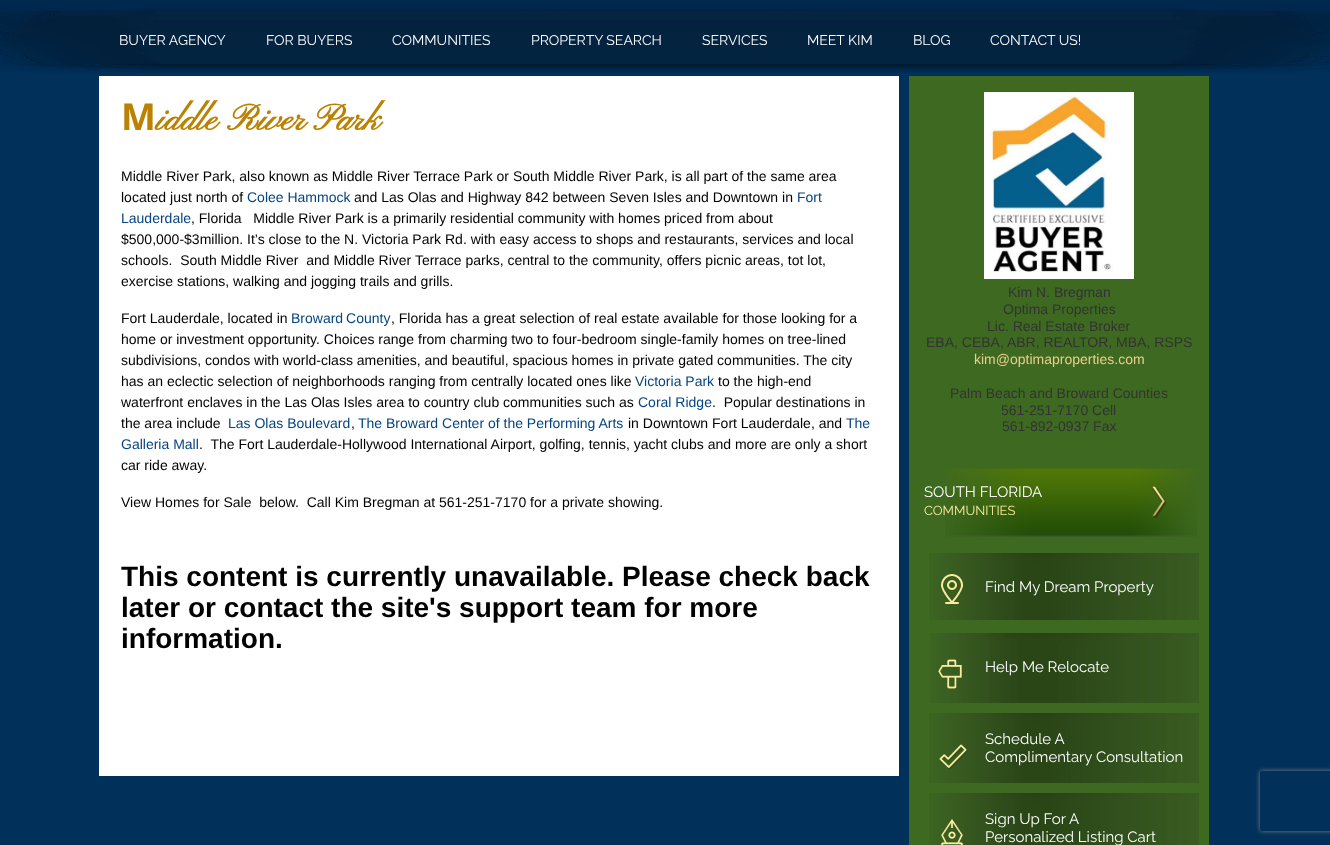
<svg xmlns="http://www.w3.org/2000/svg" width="1330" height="845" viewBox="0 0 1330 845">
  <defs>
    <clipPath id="clip1"><path d="M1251 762H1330V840H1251ZM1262 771H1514C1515 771 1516 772 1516 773V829C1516 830 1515 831 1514 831H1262C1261 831 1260 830 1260 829V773C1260 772 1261 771 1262 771Z" clip-rule="evenodd"/></clipPath>
  </defs>
  <rect width="100%" height="100%" fill="rgb(1,48,90)"/>
  <image x="0" y="0" width="1330" height="73" href="pic1.png"/>
  <g font-family="Raleway" font-size="14" fill="rgb(255,255,255)">
    <text x="119" y="45">BUYER AGENCY</text>
    <text x="266" y="45">FOR BUYERS</text>
    <text x="392" y="45">COMMUNITIES</text>
    <text x="531" y="45">PROPERTY SEARCH</text>
    <text x="702" y="45">SERVICES</text>
    <text x="807" y="45">MEET KIM</text>
    <text x="913" y="45">BLOG</text>
    <text x="990" y="45">CONTACT US!</text>
  </g>
  <rect x="99" y="76" width="800" height="700" fill="rgb(255,255,255)"/>
  <text x="121" y="130" font-family="Noto Sans" font-size="37" font-weight="bold" fill="rgb(187,129,0)">M</text>
  <text x="156" y="130" font-family="Pinyon Script" font-size="37" font-weight="bold" fill="rgb(187,129,0)">iddle River Park</text>
  <g font-family="Liberation Sans" font-size="14" fill="rgb(0,0,0)">
    <text>
      <tspan x="121" y="181">Middle River Park, also known as Middle River Terrace Park or South Middle River Park, is all part of the same area</tspan>
      <tspan x="121" y="202">located just north of</tspan>
    </text>
  </g>
  <text x="247" y="202" font-family="Liberation Sans" font-size="14" fill="rgb(4,68,127)">Colee Hammock</text>
  <text x="354" y="202" font-family="Liberation Sans" font-size="14" fill="rgb(0,0,0)">and Las Olas and Highway 842 between Seven Isles and Downtown in</text>
  <g font-family="Liberation Sans" font-size="14" fill="rgb(4,68,127)">
    <text x="797" y="202">Fort</text>
    <text x="121" y="223">Lauderdale</text>
  </g>
  <g font-family="Liberation Sans" font-size="14" fill="rgb(0,0,0)">
    <text x="191" y="223" xml:space="preserve">, Florida   Middle River Park is a primarily residential community with homes priced from about</text>
    <text xml:space="preserve"><tspan x="121" y="244">$500,000-$3million. It’s close to the N. Victoria Park Rd. with easy access to shops and restaurants, services and local</tspan><tspan x="121" y="265">schools.  South Middle River  and Middle River Terrace parks, central to the community, offers picnic areas, tot lot,</tspan><tspan x="121" y="286">exercise stations, walking and jogging trails and grills.</tspan></text>
    <text x="121" y="323">Fort Lauderdale, located in</text>
  </g>
  <text x="291" y="323" word-spacing="-1" font-family="Liberation Sans" font-size="14" fill="rgb(4,68,127)">Broward County</text>
  <g font-family="Liberation Sans" font-size="14" fill="rgb(0,0,0)">
    <text x="391" y="323">, Florida has a great selection of real estate available for those looking for a</text>
    <text>
      <tspan x="121" y="344">home or investment opportunity. Choices range from charming two to four-bedroom single-family homes on tree-lined</tspan>
      <tspan x="121" y="365">subdivisions, condos with world-class amenities, and beautiful, spacious homes in private gated communities. The city</tspan>
      <tspan x="121" y="386">has an eclectic selection of neighborhoods ranging from centrally located ones like</tspan>
    </text>
  </g>
  <text x="635" y="386" font-family="Liberation Sans" font-size="14" fill="rgb(4,68,127)">Victoria Park</text>
  <g font-family="Liberation Sans" font-size="14" fill="rgb(0,0,0)">
    <text x="718" y="386">to the high-end</text>
    <text x="121" y="407">waterfront enclaves in the Las Olas Isles area to country club communities such as</text>
  </g>
  <text x="638" y="407" font-family="Liberation Sans" font-size="14" fill="rgb(4,68,127)">Coral Ridge</text>
  <g font-family="Liberation Sans" font-size="14" fill="rgb(0,0,0)">
    <text x="712" y="407" xml:space="preserve">.  Popular destinations in</text>
    <text x="121" y="428">the area include</text>
  </g>
  <text x="228" y="428" font-family="Liberation Sans" font-size="14" fill="rgb(4,68,127)">Las Olas Boulevard</text>
  <text x="351" y="428" font-family="Liberation Sans" font-size="14" fill="rgb(0,0,0)">,</text>
  <text x="358" y="428" font-family="Liberation Sans" font-size="14" fill="rgb(4,68,127)">The Broward Center of the Performing Arts</text>
  <text x="628" y="428" font-family="Liberation Sans" font-size="14" fill="rgb(0,0,0)">in Downtown Fort Lauderdale, and</text>
  <g font-family="Liberation Sans" font-size="14" fill="rgb(4,68,127)">
    <text x="846" y="428">The</text>
    <text x="121" y="449">Galleria Mall</text>
  </g>
  <g font-family="Liberation Sans" font-size="14" fill="rgb(0,0,0)">
    <text x="199" y="449" xml:space="preserve">.  The Fort Lauderdale-Hollywood International Airport, golfing, tennis, yacht clubs and more are only a short</text>
    <text x="121" y="470">car ride away.</text>
    <text x="121" y="507" xml:space="preserve">View Homes for Sale  below.  Call Kim Bregman at 561-251-7170 for a private showing.</text>
  </g>
  <g font-family="Liberation Sans" font-size="28" font-weight="bold" fill="rgb(0,0,0)">
    <text>
      <tspan x="121" y="586">This content is currently unavailable. Please check back</tspan>
      <tspan x="121" y="617">later or contact the site's support team for more</tspan>
      <tspan x="121" y="648">information.</tspan>
    </text>
  </g>
  <rect x="909" y="76" width="300" height="769" fill="rgb(62,105,33)"/>
  <image x="984" y="92" width="150" height="187" href="pic2.png"/>
  <g font-family="Liberation Sans" font-size="14" fill="rgb(51,51,51)">
    <text x="1008" y="297">Kim N. Bregman</text>
    <text x="1003" y="314">Optima Properties</text>
    <text x="987" y="331">Lic. Real Estate Broker</text>
    <text x="926" y="347">EBA, CEBA, ABR, REALTOR, MBA, RSPS</text>
  </g>
  <text x="974" y="364" font-family="Liberation Sans" font-size="14" fill="rgb(235,206,142)">kim@optimaproperties.com</text>
  <g font-family="Liberation Sans" font-size="14" fill="rgb(51,51,51)">
    <text x="950" y="398">Palm Beach and Broward Counties</text>
    <text x="1001" y="415">561-251-7170 Cell</text>
    <text x="1002" y="431">561-892-0937 Fax</text>
  </g>
  <image x="945" y="468" width="252" height="69" href="pic3.png"/>
  <text x="924" y="497" font-family="Raleway" font-size="15" fill="rgb(255,255,255)">SOUTH FLORIDA</text>
  <text x="924" y="515" font-family="Raleway" font-size="13" fill="rgb(250,236,158)">COMMUNITIES</text>
  <image x="929" y="553" width="270" height="67" href="pic4.png"/>
  <text x="985" y="592" font-family="Raleway" font-size="15" fill="rgb(255,255,255)">Find My Dream Property</text>
  <image x="930" y="633" width="269" height="70" href="pic5.png"/>
  <text x="985" y="672" font-family="Raleway" font-size="15" fill="rgb(255,255,255)">Help Me Relocate</text>
  <image x="929" y="713" width="270" height="70" href="pic6.png"/>
  <g font-family="Raleway" font-size="15" fill="rgb(255,255,255)">
    <text>
      <tspan x="985" y="744">Schedule A</tspan>
      <tspan x="985" y="762">Complimentary Consultation</tspan>
    </text>
  </g>
  <image x="929" y="793" width="270" height="52" href="pic7.png"/>
  <g font-family="Raleway" font-size="15" fill="rgb(255,255,255)">
    <text>
      <tspan x="985" y="824">Sign Up For A</tspan>
      <tspan x="985" y="842">Personalized Listing Cart</tspan>
    </text>
  </g>
  <g clip-path="url(#clip1)">
    <rect x="1260" y="771" width="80" height="60" rx="2" fill="rgb(128,128,128)" filter="blur(2.5px)"/>
  </g>
</svg>
